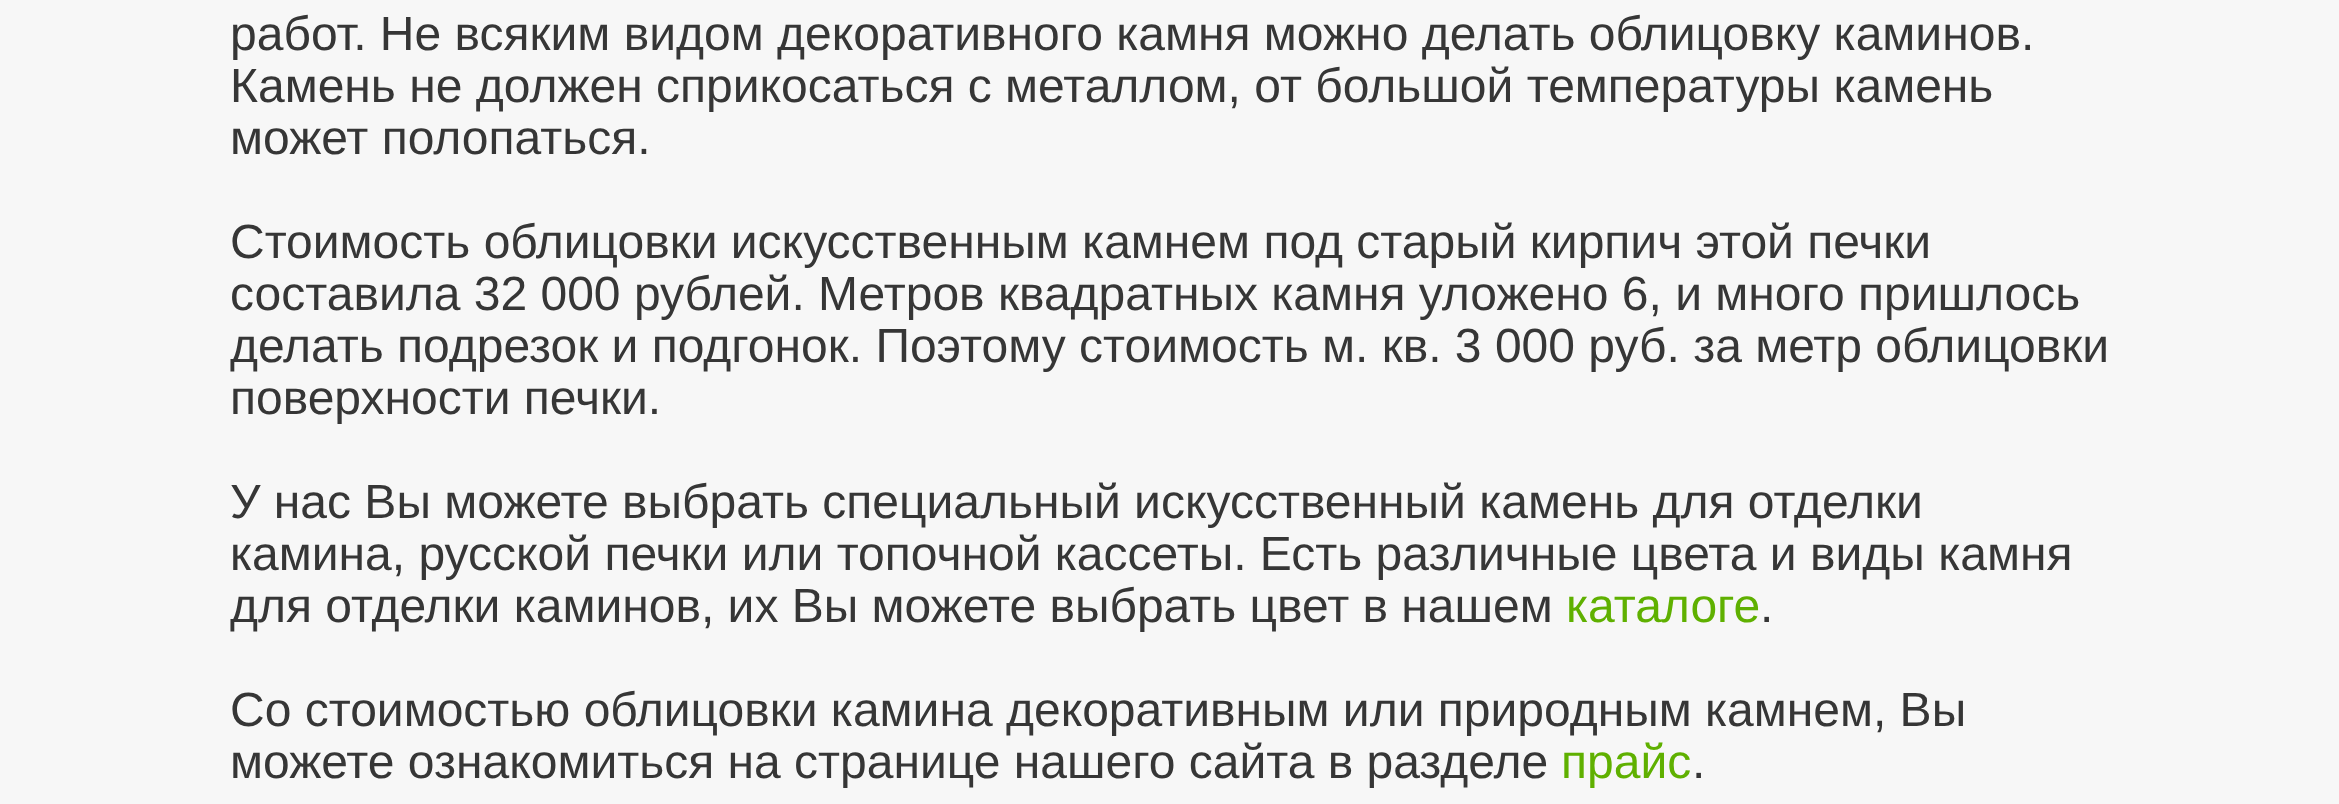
<svg xmlns="http://www.w3.org/2000/svg" width="2339" height="804" viewBox="0 0 2339 804">
  <rect width="100%" height="100%" fill="rgb(247,247,247)"/>
  <g font-family="Liberation Sans" font-size="48" fill="rgb(54,54,54)">
    <text>
      <tspan x="230" y="50">работ. Не всяким видом декоративного камня можно делать облицовку каминов.</tspan>
      <tspan x="230" y="102">Камень не должен сприкосаться с металлом, от большой температуры камень</tspan>
      <tspan x="230" y="154">может полопаться.</tspan>
    </text>
    <text>
      <tspan x="230" y="258">Стоимость облицовки искусственным камнем под старый кирпич этой печки</tspan>
      <tspan x="230" y="310">составила 32 000 рублей. Метров квадратных камня уложено 6, и много пришлось</tspan>
      <tspan x="230" y="362">делать подрезок и подгонок. Поэтому стоимость м. кв. 3 000 руб. за метр облицовки</tspan>
      <tspan x="230" y="414">поверхности печки.</tspan>
    </text>
    <text>
      <tspan x="230" y="518">У нас Вы можете выбрать специальный искусственный камень для отделки</tspan>
      <tspan x="230" y="570">камина, русской печки или топочной кассеты. Есть различные цвета и виды камня</tspan>
      <tspan x="230" y="622">для отделки каминов, их Вы можете выбрать цвет в нашем</tspan>
    </text>
  </g>
  <text x="1566" y="622" font-family="Liberation Sans" font-size="48" fill="rgb(95,176,0)">каталоге</text>
  <g font-family="Liberation Sans" font-size="48" fill="rgb(54,54,54)">
    <text x="1760" y="622">.</text>
    <text>
      <tspan x="230" y="726">Со стоимостью облицовки камина декоративным или природным камнем, Вы</tspan>
      <tspan x="230" y="778">можете ознакомиться на странице нашего сайта в разделе</tspan>
    </text>
  </g>
  <text x="1561" y="778" font-family="Liberation Sans" font-size="48" fill="rgb(95,176,0)">прайс</text>
  <text x="1692" y="778" font-family="Liberation Sans" font-size="48" fill="rgb(54,54,54)">.</text>
</svg>
